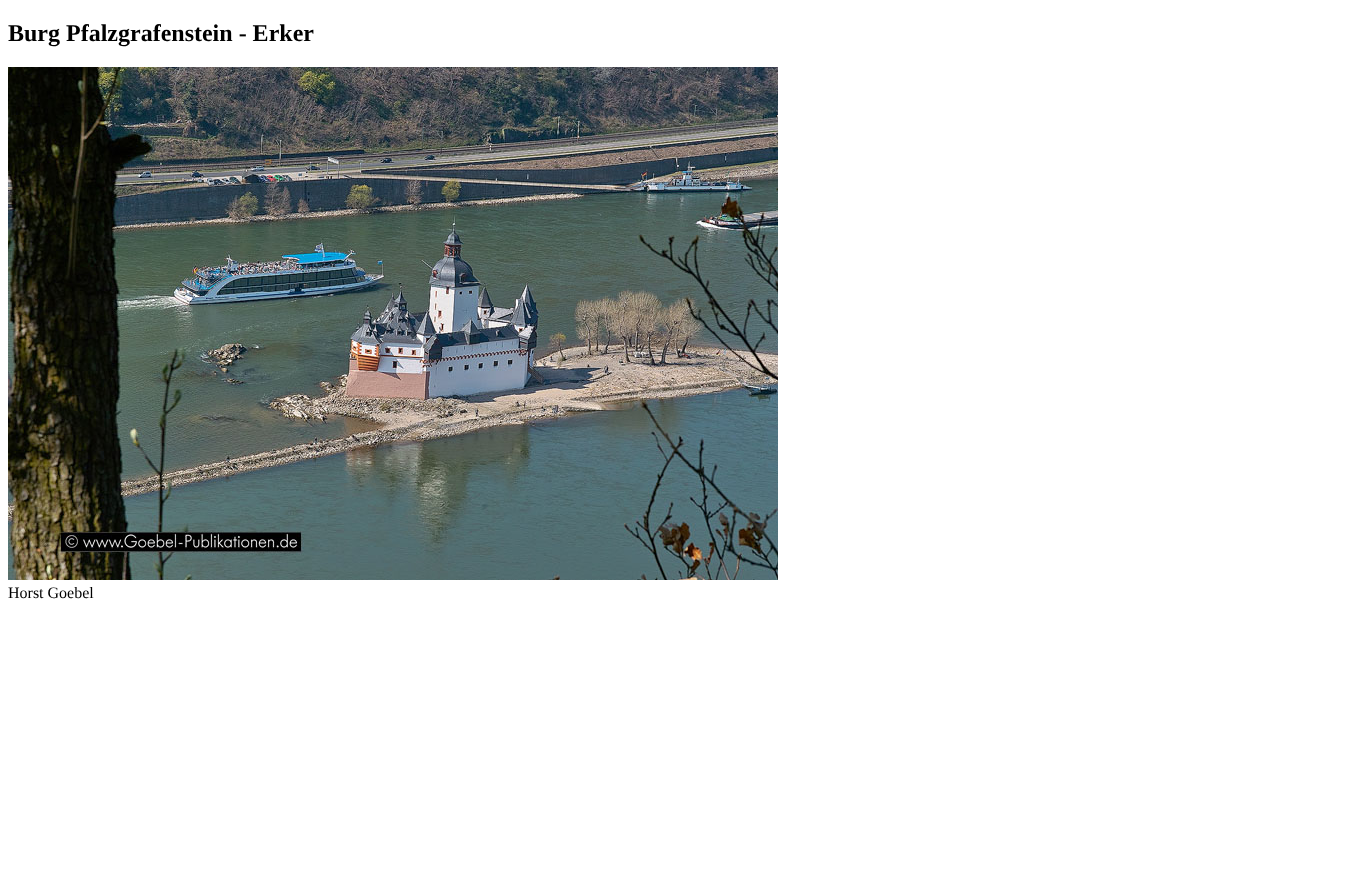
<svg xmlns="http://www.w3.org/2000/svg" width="1352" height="893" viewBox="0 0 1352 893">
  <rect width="100%" height="100%" fill="rgb(255,255,255)"/>
  <text x="8" y="41" font-family="Liberation Serif" font-size="24" font-weight="bold" fill="rgb(0,0,0)">Burg Pfalzgrafenstein - Erker</text>
  <image x="8" y="67" width="770" height="513" href="pic1.png"/>
  <text x="8" y="598" font-family="Liberation Serif" font-size="16" fill="rgb(0,0,0)">Horst Goebel</text>
</svg>
